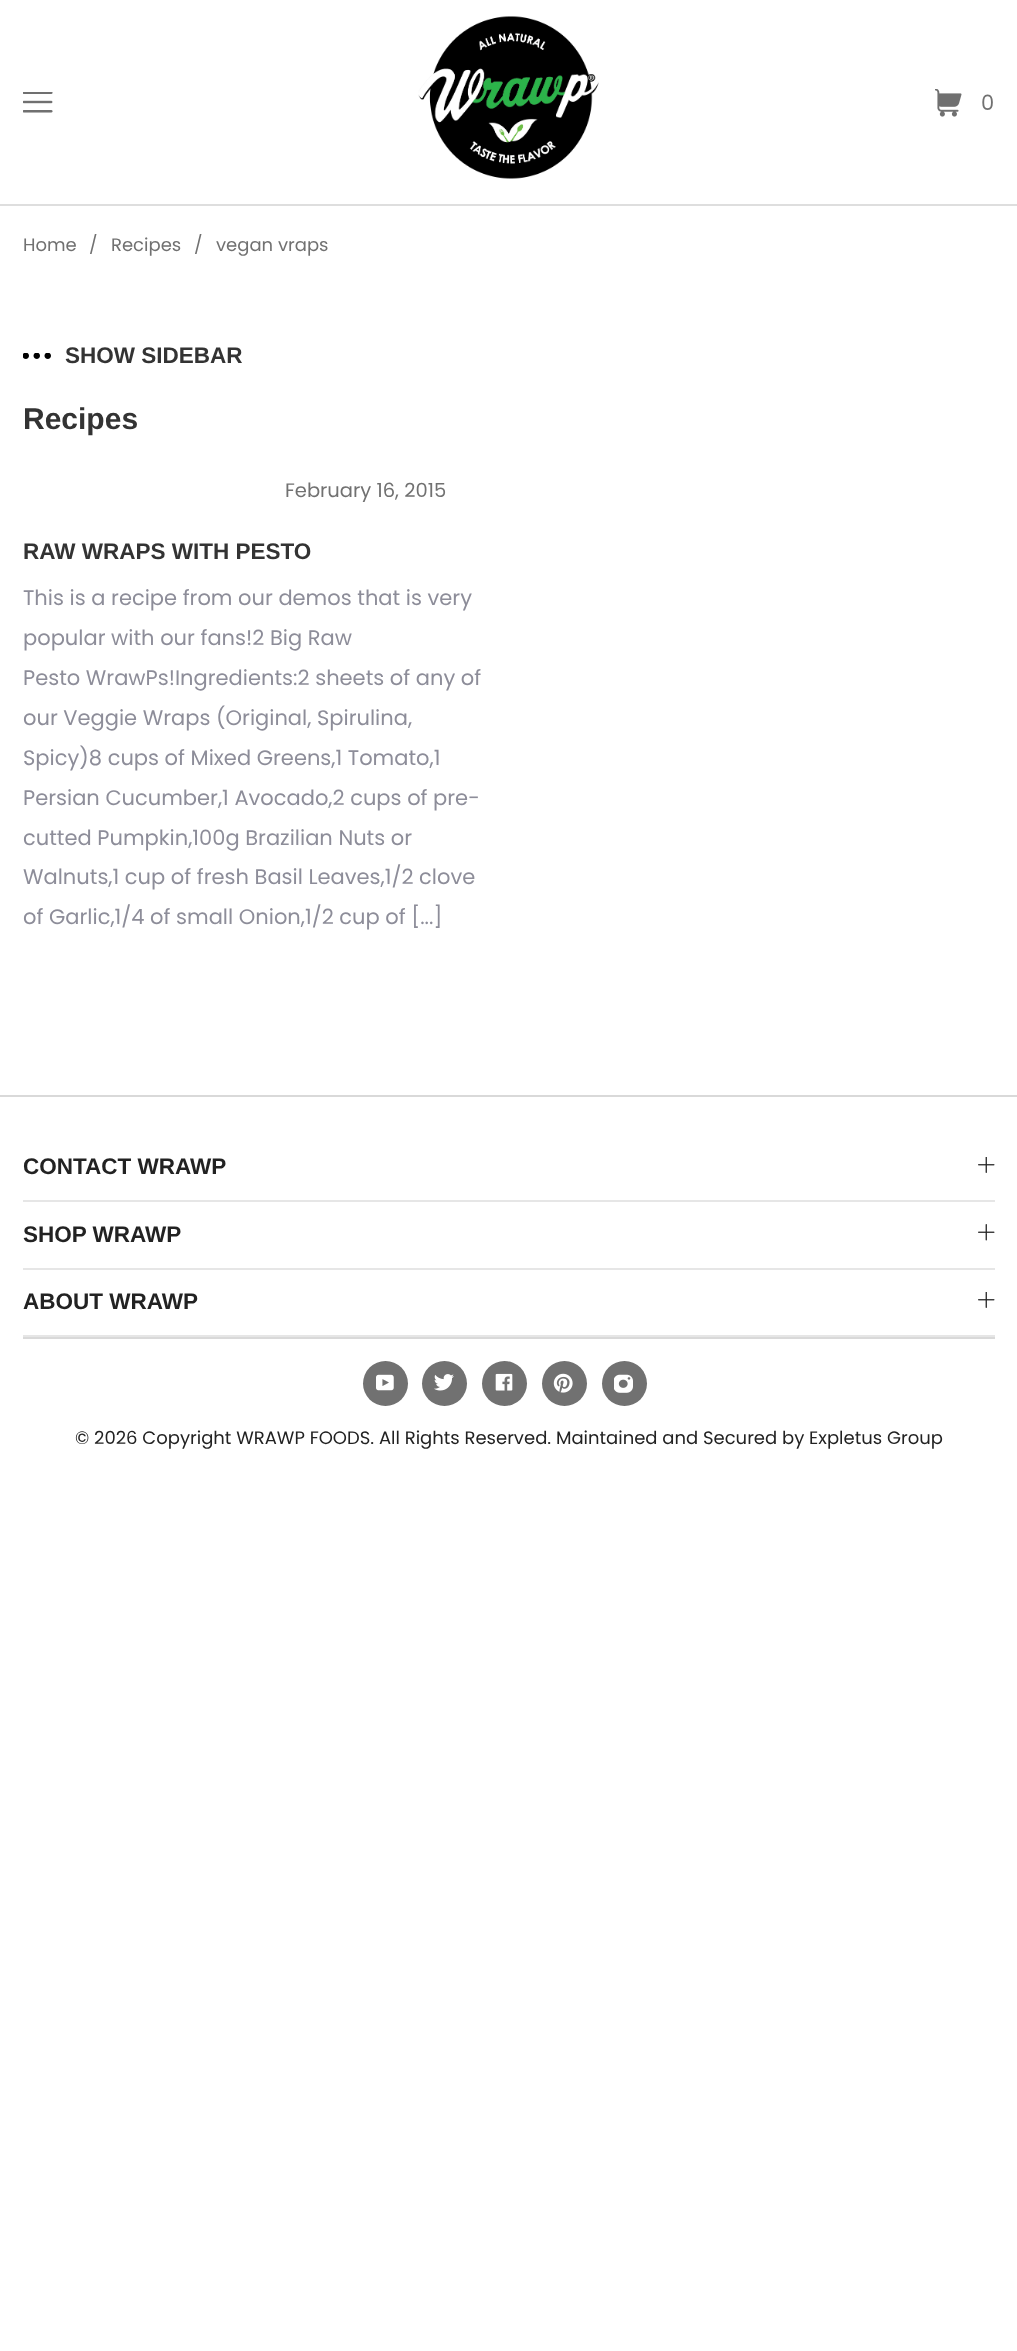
<svg xmlns="http://www.w3.org/2000/svg" width="1017" height="2351" viewBox="0 0 1017 2351">
  <rect width="100%" height="100%" fill="rgb(255,255,255)"/>
  <rect x="0" y="204" width="1017" height="2" fill="rgb(222,222,222)"/>
  <image x="23" y="92" width="30" height="21" href="pic1.png"/>
  <image x="418" y="16" width="181" height="163" href="pic2.png"/>
  <image x="935" y="89" width="27" height="28" href="pic3.png"/>
  <text x="981" y="110" font-family="Poppins" font-size="21" fill="rgb(113,113,113)">0</text>
  <g font-family="Poppins" font-size="18" fill="rgb(113,113,113)">
    <text x="23" y="251">Home</text>
    <text x="89" y="251">/</text>
    <text x="111" y="251">Recipes</text>
    <text x="194" y="251">/</text>
    <text x="216" y="251">vegan vraps</text>
  </g>
  <image x="23" y="353" width="28" height="6" href="pic4.png"/>
  <text x="65" y="363" font-family="Liberation Sans" font-size="22.5" font-weight="bold" fill="rgb(51,51,51)">SHOW SIDEBAR</text>
  <text x="23" y="429" font-family="Liberation Sans" font-size="30" font-weight="bold" fill="rgb(51,51,51)">Recipes</text>
  <text x="285" y="497" font-family="Poppins" font-size="19.5" fill="rgb(113,113,113)">February 16, 2015</text>
  <text x="23" y="559" font-family="Liberation Sans" font-size="22.5" font-weight="bold" fill="rgb(51,51,51)">RAW WRAPS WITH PESTO</text>
  <g font-family="Poppins" font-size="21" fill="rgb(141,141,153)">
    <text>
      <tspan x="23" y="605">This is a recipe from our demos that is very</tspan>
      <tspan x="23" y="645">popular with our fans!2 Big Raw</tspan>
      <tspan x="23" y="685">Pesto WrawPs!Ingredients:2 sheets of any of</tspan>
      <tspan x="23" y="725">our Veggie Wraps (Original, Spirulina,</tspan>
      <tspan x="23" y="765">Spicy)8 cups of Mixed Greens,1 Tomato,1</tspan>
      <tspan x="23" y="805">Persian Cucumber,1 Avocado,2 cups of pre-</tspan>
      <tspan x="23" y="845">cutted Pumpkin,100g Brazilian Nuts or</tspan>
      <tspan x="23" y="884">Walnuts,1 cup of fresh Basil Leaves,1/2 clove</tspan>
      <tspan x="23" y="924">of Garlic,1/4 of small Onion,1/2 cup of [...]</tspan>
    </text>
  </g>
  <rect x="0" y="1095" width="1017" height="2" fill="rgb(217,217,217)"/>
  <rect x="23" y="1200" width="972" height="2" fill="rgb(230,230,230)"/>
  <text x="23" y="1174" font-family="Liberation Sans" font-size="22.5" font-weight="bold" fill="rgb(34,34,34)">CONTACT WRAWP</text>
  <image x="978" y="1157" width="17" height="16" href="pic5.png"/>
  <rect x="23" y="1268" width="972" height="2" fill="rgb(230,230,230)"/>
  <text x="23" y="1242" font-family="Liberation Sans" font-size="22.5" font-weight="bold" fill="rgb(34,34,34)">SHOP WRAWP</text>
  <image x="978" y="1224" width="17" height="17" href="pic6.png"/>
  <rect x="23" y="1335" width="972" height="2" fill="rgb(230,230,230)"/>
  <text x="23" y="1309" font-family="Liberation Sans" font-size="22.5" font-weight="bold" fill="rgb(34,34,34)">ABOUT WRAWP</text>
  <image x="978" y="1292" width="17" height="16" href="pic5.png"/>
  <rect x="23" y="1337" width="972" height="2" fill="rgb(217,217,217)"/>
  <circle cx="385.5" cy="1383.5" r="22.5" fill="rgb(113,113,113)"/>
  <image x="376" y="1374" width="18" height="17" href="pic7.png"/>
  <circle cx="444.5" cy="1383.5" r="22.5" fill="rgb(113,113,113)"/>
  <image x="434" y="1374" width="20" height="17" href="pic8.png"/>
  <circle cx="504.5" cy="1383.5" r="22.5" fill="rgb(113,113,113)"/>
  <image x="495" y="1373" width="18" height="18" href="pic9.png"/>
  <circle cx="564.5" cy="1383.5" r="22.5" fill="rgb(113,113,113)"/>
  <image x="553" y="1373" width="20" height="20" href="pic10.png"/>
  <circle cx="624.5" cy="1383.5" r="22.5" fill="rgb(113,113,113)"/>
  <image x="614" y="1374" width="19" height="19" href="pic11.png"/>
  <text x="75" y="1444" font-family="Poppins" font-size="18" fill="rgb(34,34,34)">© 2026 Copyright WRAWP FOODS. All Rights Reserved. Maintained and Secured by Expletus Group</text>
</svg>
